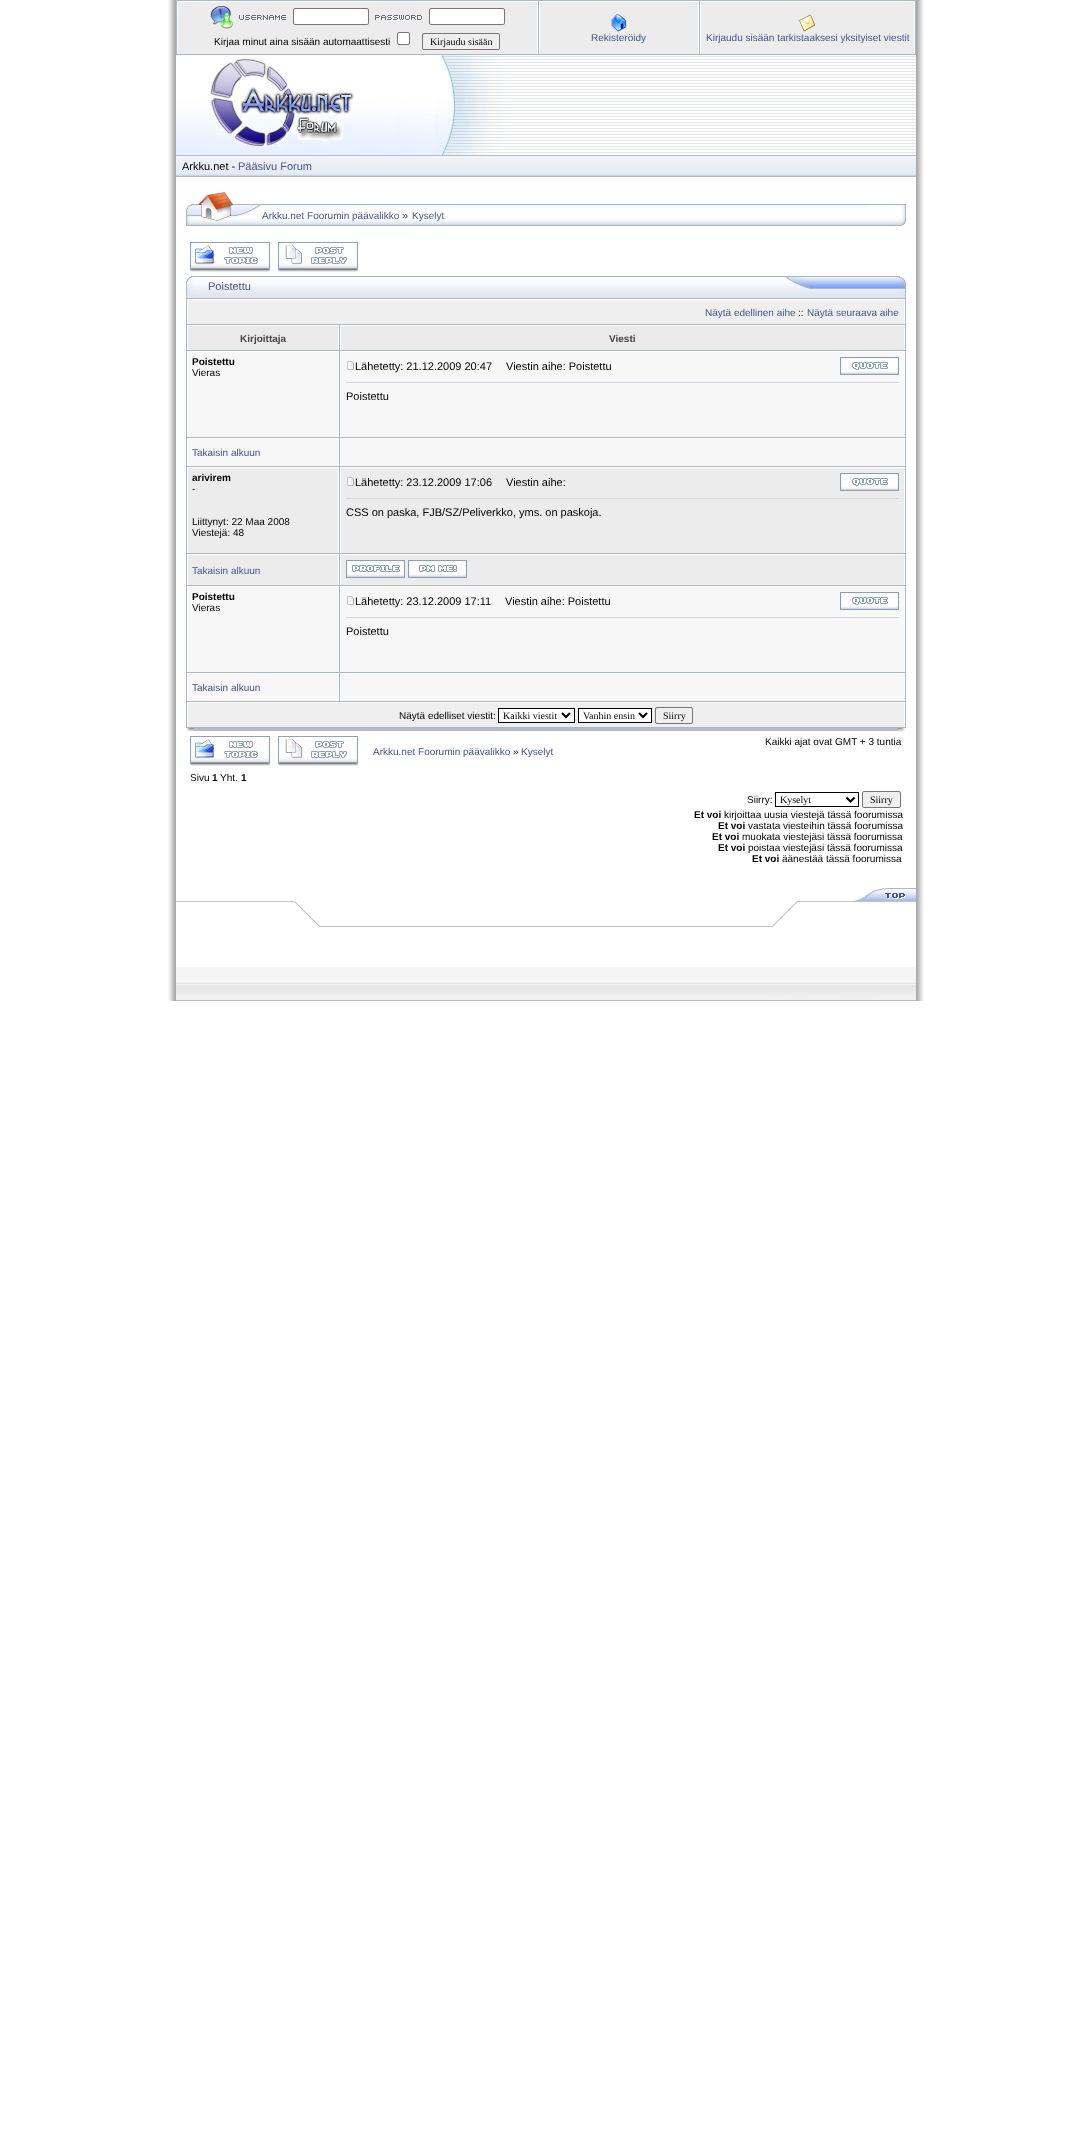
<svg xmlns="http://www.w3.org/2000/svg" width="1092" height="2133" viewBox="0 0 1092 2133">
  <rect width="100%" height="100%" fill="rgb(255,255,255)"/>
  <image x="168" y="0" width="8" height="1001" href="pic1.png"/>
  <rect x="176" y="0" width="740" height="55" fill="rgb(169,184,194)"/>
  <rect x="178" y="2" width="359" height="52" fill="rgb(236,236,236)"/>
  <rect x="177" y="1" width="361" height="1" fill="rgb(255,255,255)"/>
  <rect x="537" y="1" width="1" height="53" fill="rgb(255,255,255)"/>
  <rect x="177" y="1" width="1" height="53" fill="rgb(255,255,255)"/>
  <image x="210" y="6" width="23" height="23" href="pic2.png"/>
  <image x="239" y="15" width="48" height="6" href="pic3.png"/>
  <rect x="293.5" y="8.5" width="75" height="16" rx="1.5" fill="rgb(255,255,255)" stroke="rgb(118,118,118)"/>
  <image x="375" y="15" width="48" height="6" href="pic4.png"/>
  <rect x="429.5" y="8.5" width="75" height="16" rx="1.5" fill="rgb(255,255,255)" stroke="rgb(118,118,118)"/>
  <text x="214" y="45" font-family="Liberation Sans" font-size="10" fill="rgb(0,0,0)">Kirjaa minut aina sisään automaattisesti</text>
  <rect x="397.5" y="32.5" width="12" height="12" rx="1.5" fill="rgb(255,255,255)" stroke="rgb(118,118,118)"/>
  <rect x="422.5" y="33.5" width="77" height="16" rx="1.5" fill="rgb(239,239,239)" stroke="rgb(118,118,118)"/>
  <text x="430" y="45" font-family="Liberation Serif" font-size="10" fill="rgb(0,0,0)">Kirjaudu sisään</text>
  <rect x="540" y="2" width="158" height="52" fill="rgb(236,236,236)"/>
  <rect x="539" y="1" width="160" height="1" fill="rgb(255,255,255)"/>
  <rect x="698" y="1" width="1" height="53" fill="rgb(255,255,255)"/>
  <rect x="539" y="1" width="1" height="53" fill="rgb(255,255,255)"/>
  <image x="611" y="14" width="16" height="18" href="pic5.png"/>
  <text x="591" y="41" font-family="Liberation Sans" font-size="10" fill="rgb(68,85,136)">Rekisteröidy</text>
  <rect x="701" y="2" width="213" height="52" fill="rgb(236,236,236)"/>
  <rect x="700" y="1" width="215" height="1" fill="rgb(255,255,255)"/>
  <rect x="914" y="1" width="1" height="53" fill="rgb(255,255,255)"/>
  <rect x="700" y="1" width="1" height="53" fill="rgb(255,255,255)"/>
  <image x="798" y="14" width="17" height="18" href="pic6.png"/>
  <text x="706" y="41" font-family="Liberation Sans" font-size="10" fill="rgb(68,85,136)">Kirjaudu sisään tarkistaaksesi yksityiset viestit</text>
  <image x="176" y="55" width="740" height="100" href="pic7.png"/>
  <image x="176" y="155" width="740" height="22" href="pic8.png"/>
  <text x="182" y="170" font-family="Liberation Sans" font-size="11" fill="rgb(0,0,0)">Arkku.net -</text>
  <text x="238" y="170" font-family="Liberation Sans" font-size="11" fill="rgb(68,85,136)">Pääsivu Forum</text>
  <image x="186" y="192" width="76" height="34" href="pic9.png"/>
  <image x="262" y="204" width="605" height="22" href="pic10.png"/>
  <text x="262" y="219" font-family="Liberation Sans" font-size="10" fill="rgb(68,85,136)">Arkku.net Foorumin päävalikko</text>
  <text x="402" y="219" font-family="Liberation Sans" font-size="11" fill="rgb(68,85,136)">»</text>
  <text x="412" y="219" font-family="Liberation Sans" font-size="10" fill="rgb(68,85,136)">Kyselyt</text>
  <image x="867" y="204" width="39" height="22" href="pic11.png"/>
  <image x="190" y="242" width="80" height="30" href="pic12.png"/>
  <image x="278" y="242" width="80" height="30" href="pic13.png"/>
  <image x="186" y="276" width="22" height="22" href="pic14.png"/>
  <image x="208" y="276" width="574" height="22" href="pic15.png"/>
  <text x="208" y="290" font-family="Liberation Sans" font-size="11" fill="rgb(68,85,136)">Poistettu</text>
  <image x="782" y="276" width="124" height="22" href="pic16.png"/>
  <rect x="186" y="298" width="720" height="430" fill="rgb(169,184,194)"/>
  <rect x="188" y="300" width="716" height="24" fill="rgb(239,239,239)"/>
  <rect x="187" y="299" width="718" height="1" fill="rgb(255,255,255)"/>
  <rect x="904" y="299" width="1" height="25" fill="rgb(255,255,255)"/>
  <rect x="187" y="299" width="1" height="25" fill="rgb(255,255,255)"/>
  <text x="705" y="316" font-family="Liberation Sans" font-size="10" fill="rgb(68,85,136)">Näytä edellinen aihe</text>
  <text x="798" y="316" font-family="Liberation Sans" font-size="10" fill="rgb(0,0,0)">::</text>
  <text x="807" y="316" font-family="Liberation Sans" font-size="10" fill="rgb(68,85,136)">Näytä seuraava aihe</text>
  <rect x="188" y="326" width="150" height="24" fill="rgb(234,234,234)"/>
  <rect x="187" y="325" width="152" height="1" fill="rgb(255,255,255)"/>
  <rect x="338" y="325" width="1" height="25" fill="rgb(255,255,255)"/>
  <rect x="187" y="325" width="1" height="25" fill="rgb(255,255,255)"/>
  <text x="240" y="342" font-family="Liberation Sans" font-size="10" font-weight="bold" fill="rgb(68,68,68)">Kirjoittaja</text>
  <rect x="341" y="326" width="563" height="24" fill="rgb(234,234,234)"/>
  <rect x="340" y="325" width="565" height="1" fill="rgb(255,255,255)"/>
  <rect x="904" y="325" width="1" height="25" fill="rgb(255,255,255)"/>
  <rect x="340" y="325" width="1" height="25" fill="rgb(255,255,255)"/>
  <text x="609" y="342" font-family="Liberation Sans" font-size="10" font-weight="bold" fill="rgb(68,68,68)">Viesti</text>
  <rect x="188" y="352" width="150" height="85" fill="rgb(247,247,247)"/>
  <rect x="187" y="351" width="152" height="1" fill="rgb(255,255,255)"/>
  <rect x="338" y="351" width="1" height="86" fill="rgb(255,255,255)"/>
  <rect x="187" y="351" width="1" height="86" fill="rgb(255,255,255)"/>
  <text x="192" y="365" font-family="Liberation Sans" font-size="10" font-weight="bold" fill="rgb(0,0,0)">Poistettu</text>
  <text x="192" y="376" font-family="Liberation Sans" font-size="10" fill="rgb(0,0,0)">Vieras</text>
  <rect x="341" y="352" width="563" height="85" fill="rgb(247,247,247)"/>
  <rect x="340" y="351" width="565" height="1" fill="rgb(255,255,255)"/>
  <rect x="904" y="351" width="1" height="86" fill="rgb(255,255,255)"/>
  <rect x="340" y="351" width="1" height="86" fill="rgb(255,255,255)"/>
  <image x="347" y="361" width="7" height="9" href="pic17.png"/>
  <g font-family="Liberation Sans" font-size="11" fill="rgb(0,0,0)">
    <text x="355" y="370">Lähetetty: 21.12.2009 20:47</text>
    <text x="506" y="370">Viestin aihe: Poistettu</text>
  </g>
  <image x="840" y="357" width="59" height="18" href="pic18.png"/>
  <rect x="346" y="382" width="553" height="1" fill="rgb(209,215,220)"/>
  <text x="346" y="400" font-family="Liberation Sans" font-size="11" fill="rgb(0,0,0)">Poistettu</text>
  <rect x="188" y="439" width="150" height="27" fill="rgb(247,247,247)"/>
  <rect x="187" y="438" width="152" height="1" fill="rgb(255,255,255)"/>
  <rect x="338" y="438" width="1" height="28" fill="rgb(255,255,255)"/>
  <rect x="187" y="438" width="1" height="28" fill="rgb(255,255,255)"/>
  <text x="192" y="456" font-family="Liberation Sans" font-size="10" fill="rgb(68,85,136)">Takaisin alkuun</text>
  <rect x="341" y="439" width="563" height="27" fill="rgb(247,247,247)"/>
  <rect x="340" y="438" width="565" height="1" fill="rgb(255,255,255)"/>
  <rect x="904" y="438" width="1" height="28" fill="rgb(255,255,255)"/>
  <rect x="340" y="438" width="1" height="28" fill="rgb(255,255,255)"/>
  <rect x="188" y="468" width="150" height="85" fill="rgb(236,236,236)"/>
  <rect x="187" y="467" width="152" height="1" fill="rgb(255,255,255)"/>
  <rect x="338" y="467" width="1" height="86" fill="rgb(255,255,255)"/>
  <rect x="187" y="467" width="1" height="86" fill="rgb(255,255,255)"/>
  <text x="192" y="481" font-family="Liberation Sans" font-size="10" font-weight="bold" fill="rgb(0,0,0)">arivirem</text>
  <g font-family="Liberation Sans" font-size="10" fill="rgb(0,0,0)">
    <text x="192" y="492">-</text>
    <text>
      <tspan x="192" y="525">Liittynyt: 22 Maa 2008</tspan>
      <tspan x="192" y="536">Viestejä: 48</tspan>
    </text>
  </g>
  <rect x="341" y="468" width="563" height="85" fill="rgb(236,236,236)"/>
  <rect x="340" y="467" width="565" height="1" fill="rgb(255,255,255)"/>
  <rect x="904" y="467" width="1" height="86" fill="rgb(255,255,255)"/>
  <rect x="340" y="467" width="1" height="86" fill="rgb(255,255,255)"/>
  <image x="347" y="477" width="7" height="9" href="pic19.png"/>
  <g font-family="Liberation Sans" font-size="11" fill="rgb(0,0,0)">
    <text x="355" y="486">Lähetetty: 23.12.2009 17:06</text>
    <text x="506" y="486">Viestin aihe:</text>
  </g>
  <image x="840" y="473" width="59" height="18" href="pic18.png"/>
  <rect x="346" y="498" width="553" height="1" fill="rgb(209,215,220)"/>
  <text x="346" y="516" font-family="Liberation Sans" font-size="11" fill="rgb(0,0,0)">CSS on paska, FJB/SZ/Peliverkko, yms. on paskoja.</text>
  <rect x="188" y="555" width="150" height="30" fill="rgb(236,236,236)"/>
  <rect x="187" y="554" width="152" height="1" fill="rgb(255,255,255)"/>
  <rect x="338" y="554" width="1" height="31" fill="rgb(255,255,255)"/>
  <rect x="187" y="554" width="1" height="31" fill="rgb(255,255,255)"/>
  <text x="192" y="574" font-family="Liberation Sans" font-size="10" fill="rgb(68,85,136)">Takaisin alkuun</text>
  <rect x="341" y="555" width="563" height="30" fill="rgb(236,236,236)"/>
  <rect x="340" y="554" width="565" height="1" fill="rgb(255,255,255)"/>
  <rect x="904" y="554" width="1" height="31" fill="rgb(255,255,255)"/>
  <rect x="340" y="554" width="1" height="31" fill="rgb(255,255,255)"/>
  <image x="346" y="560" width="59" height="18" href="pic20.png"/>
  <image x="408" y="560" width="59" height="18" href="pic21.png"/>
  <rect x="188" y="587" width="150" height="85" fill="rgb(247,247,247)"/>
  <rect x="187" y="586" width="152" height="1" fill="rgb(255,255,255)"/>
  <rect x="338" y="586" width="1" height="86" fill="rgb(255,255,255)"/>
  <rect x="187" y="586" width="1" height="86" fill="rgb(255,255,255)"/>
  <text x="192" y="600" font-family="Liberation Sans" font-size="10" font-weight="bold" fill="rgb(0,0,0)">Poistettu</text>
  <text x="192" y="611" font-family="Liberation Sans" font-size="10" fill="rgb(0,0,0)">Vieras</text>
  <rect x="341" y="587" width="563" height="85" fill="rgb(247,247,247)"/>
  <rect x="340" y="586" width="565" height="1" fill="rgb(255,255,255)"/>
  <rect x="904" y="586" width="1" height="86" fill="rgb(255,255,255)"/>
  <rect x="340" y="586" width="1" height="86" fill="rgb(255,255,255)"/>
  <image x="347" y="596" width="7" height="9" href="pic17.png"/>
  <g font-family="Liberation Sans" font-size="11" fill="rgb(0,0,0)">
    <text x="355" y="605">Lähetetty: 23.12.2009 17:11</text>
    <text x="505" y="605">Viestin aihe: Poistettu</text>
  </g>
  <image x="840" y="592" width="59" height="18" href="pic18.png"/>
  <rect x="346" y="617" width="553" height="1" fill="rgb(209,215,220)"/>
  <text x="346" y="635" font-family="Liberation Sans" font-size="11" fill="rgb(0,0,0)">Poistettu</text>
  <rect x="188" y="674" width="150" height="27" fill="rgb(247,247,247)"/>
  <rect x="187" y="673" width="152" height="1" fill="rgb(255,255,255)"/>
  <rect x="338" y="673" width="1" height="28" fill="rgb(255,255,255)"/>
  <rect x="187" y="673" width="1" height="28" fill="rgb(255,255,255)"/>
  <text x="192" y="691" font-family="Liberation Sans" font-size="10" fill="rgb(68,85,136)">Takaisin alkuun</text>
  <rect x="341" y="674" width="563" height="27" fill="rgb(247,247,247)"/>
  <rect x="340" y="673" width="565" height="1" fill="rgb(255,255,255)"/>
  <rect x="904" y="673" width="1" height="28" fill="rgb(255,255,255)"/>
  <rect x="340" y="673" width="1" height="28" fill="rgb(255,255,255)"/>
  <rect x="188" y="703" width="716" height="24" fill="rgb(239,239,239)"/>
  <rect x="187" y="702" width="718" height="1" fill="rgb(255,255,255)"/>
  <rect x="904" y="702" width="1" height="25" fill="rgb(255,255,255)"/>
  <rect x="187" y="702" width="1" height="25" fill="rgb(255,255,255)"/>
  <text x="399" y="719" font-family="Liberation Sans" font-size="10" fill="rgb(0,0,0)">Näytä edelliset viestit:</text>
  <rect x="498.5" y="708.5" width="76" height="14" fill="rgb(255,255,255)" stroke="rgb(0,0,0)"/>
  <path d="M562 713L566 717L570 713" fill="none" stroke="rgb(0,0,0)" stroke-width="2"/>
  <text x="503" y="719" font-family="Liberation Serif" font-size="10" fill="rgb(0,0,0)">Kaikki viestit</text>
  <rect x="578.5" y="708.5" width="73" height="14" fill="rgb(255,255,255)" stroke="rgb(0,0,0)"/>
  <path d="M639 713L643 717L647 713" fill="none" stroke="rgb(0,0,0)" stroke-width="2"/>
  <text x="583" y="719" font-family="Liberation Serif" font-size="10" fill="rgb(0,0,0)">Vanhin ensin</text>
  <rect x="655.5" y="707.5" width="37" height="16" rx="1.5" fill="none" stroke="rgb(118,118,118)"/>
  <text x="663" y="719" font-family="Liberation Serif" font-size="10" fill="rgb(0,0,0)">Siirry</text>
  <image x="186" y="728" width="8" height="4" href="pic22.png"/>
  <rect x="194" y="728" width="704" height="3" fill="rgb(186,186,186)"/>
  <image x="898" y="728" width="7" height="4" href="pic23.png"/>
  <image x="190" y="736" width="80" height="30" href="pic12.png"/>
  <image x="278" y="736" width="80" height="30" href="pic13.png"/>
  <text x="765" y="745" font-family="Liberation Sans" font-size="10" fill="rgb(0,0,0)">Kaikki ajat ovat GMT + 3 tuntia</text>
  <text x="373" y="755" font-family="Liberation Sans" font-size="10" fill="rgb(68,85,136)">Arkku.net Foorumin päävalikko</text>
  <text x="513" y="755" font-family="Liberation Sans" font-size="10" fill="rgb(0,0,0)">»</text>
  <text x="521" y="755" font-family="Liberation Sans" font-size="10" fill="rgb(68,85,136)">Kyselyt</text>
  <text x="190" y="781" font-family="Liberation Sans" font-size="10" fill="rgb(0,0,0)">Sivu</text>
  <text x="212" y="781" font-family="Liberation Sans" font-size="10" font-weight="bold" fill="rgb(0,0,0)">1</text>
  <text x="220" y="781" font-family="Liberation Sans" font-size="10" fill="rgb(0,0,0)">Yht.</text>
  <text x="241" y="781" font-family="Liberation Sans" font-size="10" font-weight="bold" fill="rgb(0,0,0)">1</text>
  <text x="747" y="803" font-family="Liberation Sans" font-size="10" fill="rgb(0,0,0)">Siirry:</text>
  <rect x="775.5" y="792.5" width="83" height="14" fill="none" stroke="rgb(0,0,0)"/>
  <path d="M846.5 797.5L850.5 801.5L854.5 797.5" fill="none" stroke="rgb(0,0,0)" stroke-width="2"/>
  <text x="780" y="803" font-family="Liberation Serif" font-size="10" fill="rgb(0,0,0)">Kyselyt</text>
  <rect x="862.5" y="791.5" width="38" height="16" rx="1.5" fill="rgb(239,239,239)" stroke="rgb(118,118,118)"/>
  <text x="870" y="803" font-family="Liberation Serif" font-size="10" fill="rgb(0,0,0)">Siirry</text>
  <text x="694" y="818" font-family="Liberation Sans" font-size="10" font-weight="bold" fill="rgb(0,0,0)">Et voi</text>
  <text x="724" y="818" font-family="Liberation Sans" font-size="10" fill="rgb(0,0,0)">kirjoittaa uusia viestejä tässä foorumissa</text>
  <text x="718" y="829" font-family="Liberation Sans" font-size="10" font-weight="bold" fill="rgb(0,0,0)">Et voi</text>
  <text x="748" y="829" font-family="Liberation Sans" font-size="10" fill="rgb(0,0,0)">vastata viesteihin tässä foorumissa</text>
  <text x="712" y="840" font-family="Liberation Sans" font-size="10" font-weight="bold" fill="rgb(0,0,0)">Et voi</text>
  <text x="742" y="840" font-family="Liberation Sans" font-size="10" fill="rgb(0,0,0)">muokata viestejäsi tässä foorumissa</text>
  <text x="718" y="851" font-family="Liberation Sans" font-size="10" font-weight="bold" fill="rgb(0,0,0)">Et voi</text>
  <text x="748" y="851" font-family="Liberation Sans" font-size="10" fill="rgb(0,0,0)">poistaa viestejäsi tässä foorumissa</text>
  <text x="752" y="862" font-family="Liberation Sans" font-size="10" font-weight="bold" fill="rgb(0,0,0)">Et voi</text>
  <text x="782" y="862" font-family="Liberation Sans" font-size="10" fill="rgb(0,0,0)">äänestää tässä foorumissa</text>
  <image x="853" y="888" width="63" height="13" href="pic24.png"/>
  <image x="176" y="901" width="200" height="100" href="pic25.png"/>
  <image x="376" y="926" width="340" height="75" href="pic26.png"/>
  <image x="716" y="901" width="200" height="100" href="pic27.png"/>
  <image x="916" y="0" width="8" height="1001" href="pic28.png"/>
</svg>
